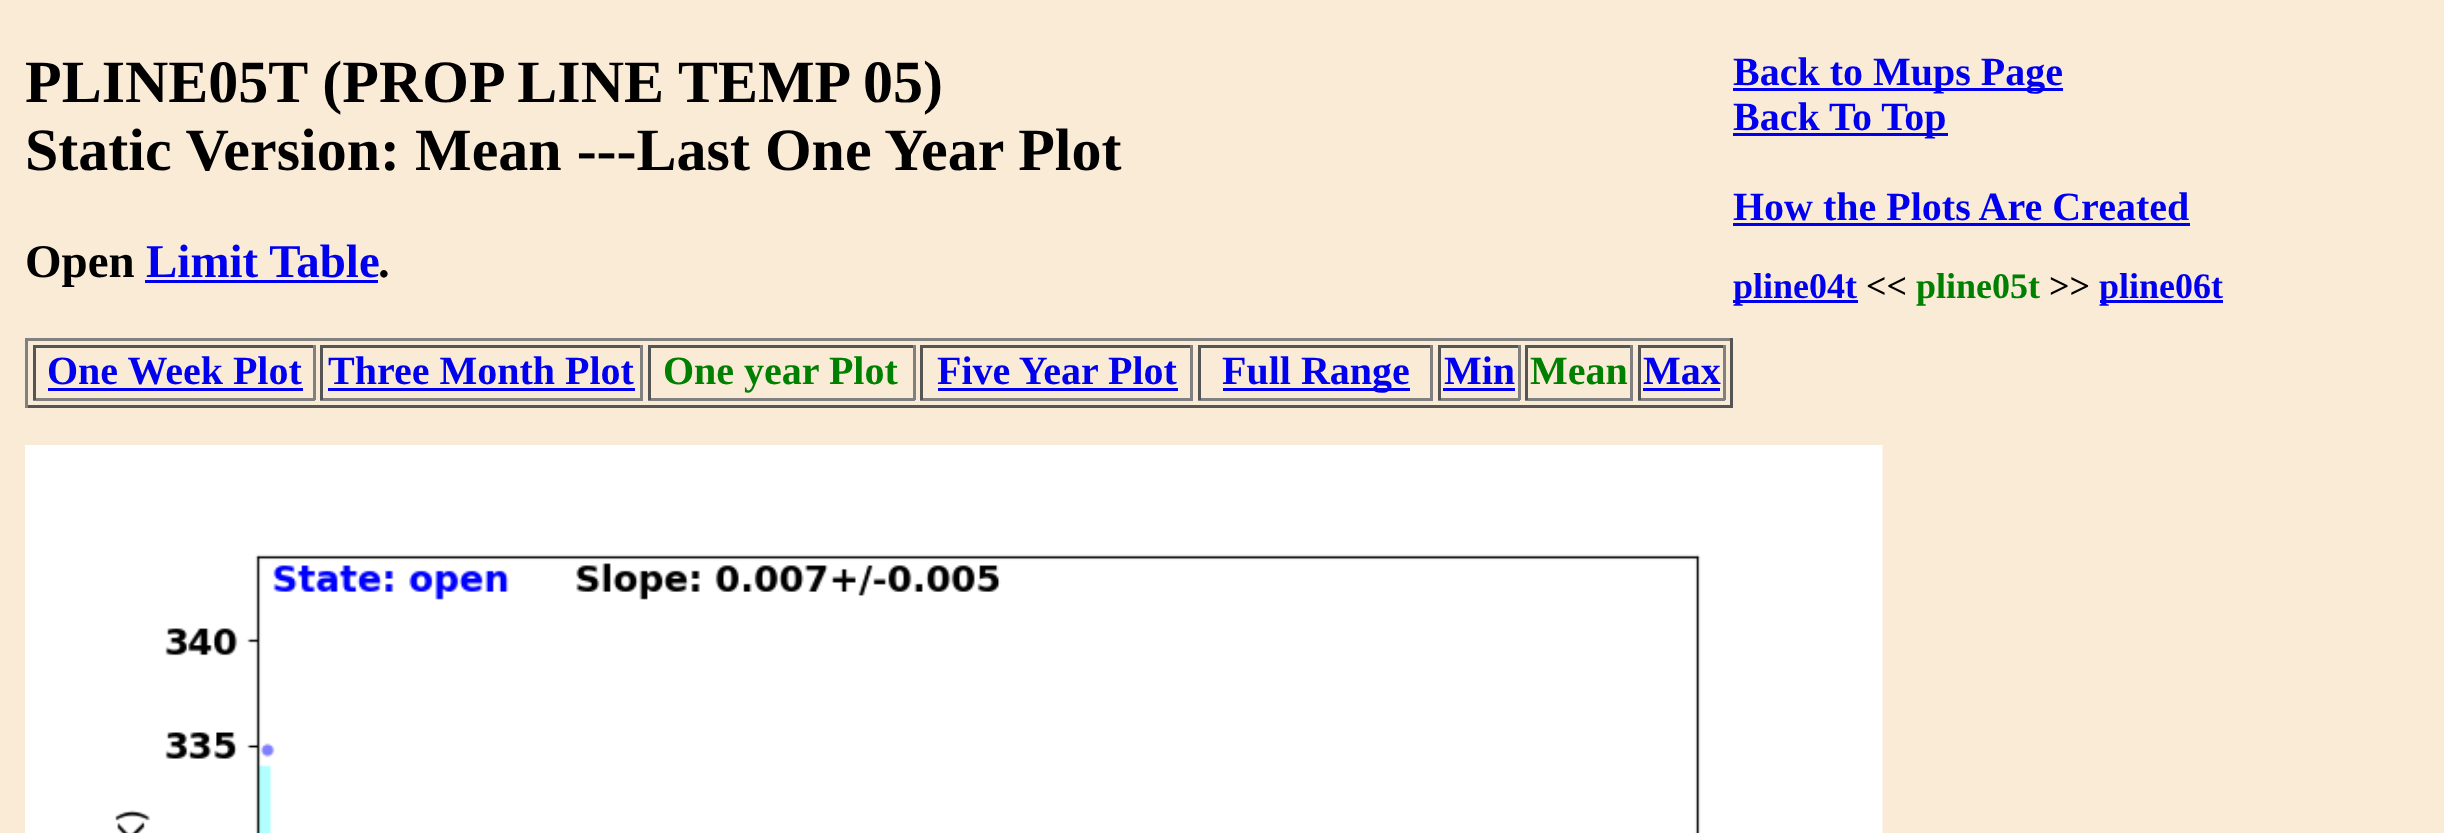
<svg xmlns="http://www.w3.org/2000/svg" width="2444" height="833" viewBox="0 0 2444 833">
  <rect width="100%" height="100%" fill="rgb(250,235,215)"/>
  <g font-family="Liberation Serif" font-size="60" font-weight="bold" fill="rgb(0,0,0)">
    <text>
      <tspan x="25" y="102">PLINE05T (PROP LINE TEMP 05)</tspan>
      <tspan x="25" y="170">Static Version: Mean ---Last One Year Plot</tspan>
    </text>
  </g>
  <text x="25" y="277" font-family="Liberation Serif" font-size="47" font-weight="bold" fill="rgb(0,0,0)">Open</text>
  <text x="146" y="277" font-family="Liberation Serif" font-size="47" font-weight="bold" fill="rgb(0,0,238)">Limit Table</text>
  <rect x="145" y="280" width="233" height="3" fill="rgb(0,0,238)"/>
  <text x="378" y="277" font-family="Liberation Serif" font-size="47" font-weight="bold" fill="rgb(0,0,0)">.</text>
  <rect x="25" y="338" width="1708" height="3" fill="rgb(128,128,128)"/>
  <rect x="1730" y="338" width="3" height="70" fill="rgb(85,85,85)"/>
  <rect x="25" y="405" width="1708" height="3" fill="rgb(85,85,85)"/>
  <rect x="25" y="338" width="3" height="70" fill="rgb(128,128,128)"/>
  <rect x="33" y="345" width="282" height="3" fill="rgb(85,85,85)"/>
  <rect x="313" y="345" width="3" height="55" fill="rgb(128,128,128)"/>
  <rect x="33" y="398" width="282" height="3" fill="rgb(128,128,128)"/>
  <rect x="33" y="345" width="3" height="55" fill="rgb(85,85,85)"/>
  <text x="47" y="384" font-family="Liberation Serif" font-size="40" font-weight="bold" fill="rgb(0,0,238)">One Week Plot</text>
  <rect x="48" y="388" width="255" height="3" fill="rgb(0,0,238)"/>
  <rect x="320" y="345" width="323" height="3" fill="rgb(85,85,85)"/>
  <rect x="640" y="345" width="3" height="55" fill="rgb(128,128,128)"/>
  <rect x="320" y="398" width="323" height="3" fill="rgb(128,128,128)"/>
  <rect x="320" y="345" width="3" height="55" fill="rgb(85,85,85)"/>
  <text x="328" y="384" font-family="Liberation Serif" font-size="40" font-weight="bold" fill="rgb(0,0,238)">Three Month Plot</text>
  <rect x="328" y="388" width="307" height="3" fill="rgb(0,0,238)"/>
  <rect x="648" y="345" width="267" height="3" fill="rgb(85,85,85)"/>
  <rect x="913" y="345" width="3" height="55" fill="rgb(128,128,128)"/>
  <rect x="648" y="398" width="267" height="3" fill="rgb(128,128,128)"/>
  <rect x="648" y="345" width="3" height="55" fill="rgb(85,85,85)"/>
  <text x="663" y="384" font-family="Liberation Serif" font-size="40" font-weight="bold" fill="rgb(0,128,0)">One year Plot</text>
  <rect x="920" y="345" width="273" height="3" fill="rgb(85,85,85)"/>
  <rect x="1190" y="345" width="3" height="55" fill="rgb(128,128,128)"/>
  <rect x="920" y="398" width="273" height="3" fill="rgb(128,128,128)"/>
  <rect x="920" y="345" width="3" height="55" fill="rgb(85,85,85)"/>
  <text x="937" y="384" font-family="Liberation Serif" font-size="40" font-weight="bold" fill="rgb(0,0,238)">Five Year Plot</text>
  <rect x="938" y="388" width="240" height="3" fill="rgb(0,0,238)"/>
  <rect x="1198" y="345" width="235" height="3" fill="rgb(85,85,85)"/>
  <rect x="1430" y="345" width="3" height="55" fill="rgb(128,128,128)"/>
  <rect x="1198" y="398" width="235" height="3" fill="rgb(128,128,128)"/>
  <rect x="1198" y="345" width="3" height="55" fill="rgb(85,85,85)"/>
  <rect x="1223" y="388" width="187" height="3" fill="rgb(0,0,238)"/>
  <text x="1222" y="384" font-family="Liberation Serif" font-size="40" font-weight="bold" fill="rgb(0,0,238)">Full Range</text>
  <rect x="1438" y="345" width="82" height="3" fill="rgb(85,85,85)"/>
  <rect x="1518" y="345" width="3" height="55" fill="rgb(128,128,128)"/>
  <rect x="1438" y="398" width="82" height="3" fill="rgb(128,128,128)"/>
  <rect x="1438" y="345" width="3" height="55" fill="rgb(85,85,85)"/>
  <text x="1444" y="384" font-family="Liberation Serif" font-size="40" font-weight="bold" fill="rgb(0,0,238)">Min</text>
  <rect x="1443" y="388" width="72" height="3" fill="rgb(0,0,238)"/>
  <rect x="1525" y="345" width="108" height="3" fill="rgb(85,85,85)"/>
  <rect x="1630" y="345" width="3" height="55" fill="rgb(128,128,128)"/>
  <rect x="1525" y="398" width="108" height="3" fill="rgb(128,128,128)"/>
  <rect x="1525" y="345" width="3" height="55" fill="rgb(85,85,85)"/>
  <text x="1530" y="384" font-family="Liberation Serif" font-size="40" font-weight="bold" fill="rgb(0,128,0)">Mean</text>
  <rect x="1638" y="345" width="87" height="3" fill="rgb(85,85,85)"/>
  <rect x="1723" y="345" width="3" height="55" fill="rgb(128,128,128)"/>
  <rect x="1638" y="398" width="87" height="3" fill="rgb(128,128,128)"/>
  <rect x="1638" y="345" width="3" height="55" fill="rgb(85,85,85)"/>
  <text x="1643" y="384" font-family="Liberation Serif" font-size="40" font-weight="bold" fill="rgb(0,0,238)">Max</text>
  <rect x="1643" y="388" width="77" height="3" fill="rgb(0,0,238)"/>
  <image x="25" y="445" width="1858" height="388" href="pic1.png"/>
  <rect x="1733" y="88" width="330" height="3" fill="rgb(0,0,238)"/>
  <text x="1733" y="85" font-family="Liberation Serif" font-size="40" font-weight="bold" fill="rgb(0,0,238)">Back to Mups Page</text>
  <rect x="1733" y="133" width="215" height="3" fill="rgb(0,0,238)"/>
  <g font-family="Liberation Serif" font-size="40" font-weight="bold" fill="rgb(0,0,238)">
    <text x="1733" y="130">Back To Top</text>
    <text x="1733" y="220">How the Plots Are Created</text>
  </g>
  <rect x="1733" y="223" width="457" height="3" fill="rgb(0,0,238)"/>
  <rect x="1733" y="300" width="125" height="3" fill="rgb(0,0,238)"/>
  <text x="1733" y="298" font-family="Liberation Serif" font-size="36" font-weight="bold" fill="rgb(0,0,238)">pline04t</text>
  <text x="1866" y="298" font-family="Liberation Serif" font-size="36" font-weight="bold" fill="rgb(0,0,0)">&lt;&lt;</text>
  <text x="1916" y="298" font-family="Liberation Serif" font-size="36" font-weight="bold" fill="rgb(0,128,0)">pline05t</text>
  <text x="2049" y="298" font-family="Liberation Serif" font-size="36" font-weight="bold" fill="rgb(0,0,0)">&gt;&gt;</text>
  <rect x="2100" y="300" width="123" height="3" fill="rgb(0,0,238)"/>
  <text x="2099" y="298" font-family="Liberation Serif" font-size="36" font-weight="bold" fill="rgb(0,0,238)">pline06t</text>
</svg>
